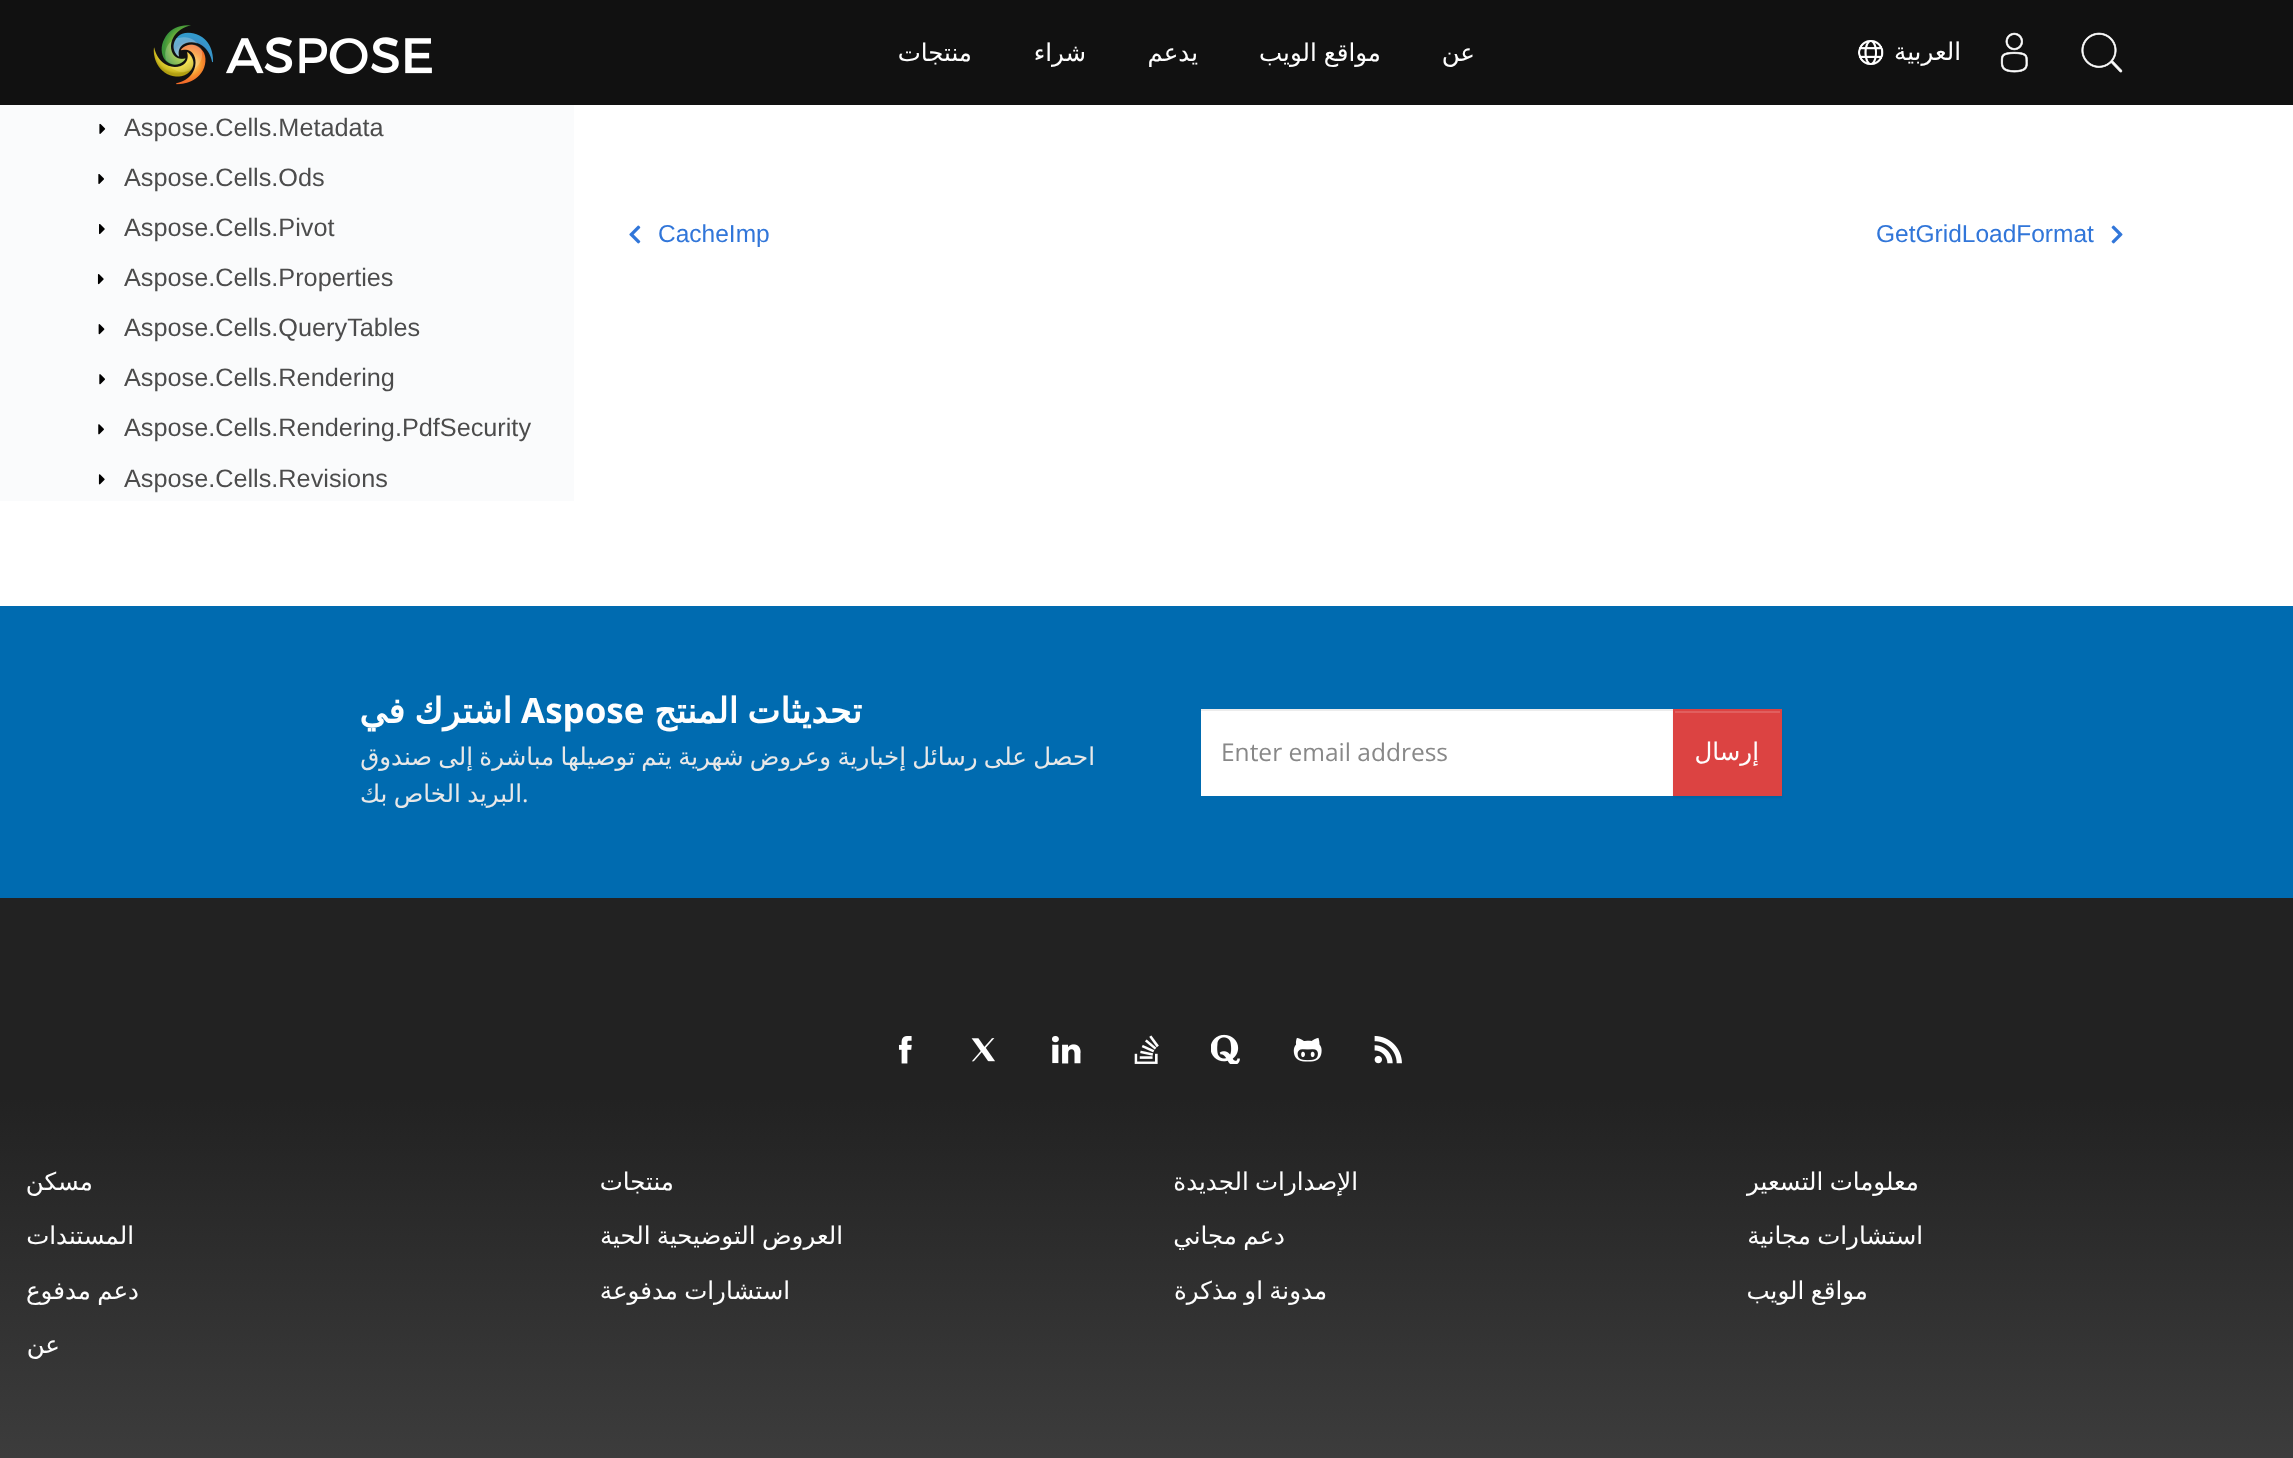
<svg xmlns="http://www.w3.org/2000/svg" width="2293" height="1458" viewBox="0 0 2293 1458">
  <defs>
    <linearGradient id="g1" gradientUnits="userSpaceOnUse" x1="1147" y1="898" x2="1147" y2="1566"><stop offset="0.3" stop-color="rgb(34,34,34)"/><stop offset="1" stop-color="rgb(68,68,68)"/></linearGradient>
  </defs>
  <rect width="100%" height="100%" fill="rgb(255,255,255)"/>
  <rect x="0" y="0" width="2293" height="105" fill="rgb(17,17,17)"/>
  <image x="2081" y="32" width="42" height="41" href="pic1.png"/>
  <image x="2000" y="32" width="28" height="41" href="pic2.png"/>
  <text x="1961" y="60" font-family="DejaVu Sans" font-size="24.5" direction="rtl" fill="rgb(254,254,254)">العربية</text>
  <image x="1858" y="40" width="26" height="25" href="pic3.png"/>
  <g font-family="DejaVu Sans" font-size="24.5" direction="rtl" fill="rgb(254,254,254)">
    <text x="1475" y="61">عن</text>
    <text x="1381" y="61" word-spacing="-1">مواقع الويب</text>
    <text x="1198" y="61">يدعم</text>
    <text x="1086" y="61">شراء</text>
    <text x="972" y="61">منتجات</text>
  </g>
  <image x="153" y="25" width="279" height="60" href="pic4.png"/>
  <image x="2111" y="225" width="12" height="19" href="pic5.png"/>
  <g font-family="Liberation Sans" font-size="24.5" fill="rgb(49,118,217)">
    <text x="1876" y="242">GetGridLoadFormat</text>
    <text x="658" y="242">CacheImp</text>
  </g>
  <image x="629" y="225" width="12" height="19" href="pic6.png"/>
  <rect x="0" y="105" width="574" height="396" fill="rgb(250,251,252)"/>
  <text x="124" y="136" font-family="Liberation Sans" font-size="25.25" fill="rgb(76,76,76)">Aspose.Cells.Metadata</text>
  <image x="99" y="123" width="7" height="11" href="pic7.png"/>
  <text x="124" y="186" font-family="Liberation Sans" font-size="25.25" fill="rgb(76,76,76)">Aspose.Cells.Ods</text>
  <image x="98" y="174" width="6" height="10" href="pic8.png"/>
  <text x="124" y="236" font-family="Liberation Sans" font-size="25.25" fill="rgb(76,76,76)">Aspose.Cells.Pivot</text>
  <image x="99" y="224" width="6" height="11" href="pic9.png"/>
  <text x="124" y="286" font-family="Liberation Sans" font-size="25.25" fill="rgb(76,76,76)">Aspose.Cells.Properties</text>
  <image x="97" y="274" width="7" height="11" href="pic10.png"/>
  <text x="124" y="336" font-family="Liberation Sans" font-size="25.25" fill="rgb(76,76,76)">Aspose.Cells.QueryTables</text>
  <image x="98" y="324" width="7" height="11" href="pic11.png"/>
  <text x="124" y="386" font-family="Liberation Sans" font-size="25.25" fill="rgb(76,76,76)">Aspose.Cells.Rendering</text>
  <image x="99" y="374" width="6" height="11" href="pic12.png"/>
  <text x="124" y="436" font-family="Liberation Sans" font-size="25.25" fill="rgb(76,76,76)">Aspose.Cells.Rendering.PdfSecurity</text>
  <image x="98" y="424" width="6" height="11" href="pic13.png"/>
  <text x="124" y="487" font-family="Liberation Sans" font-size="25.25" fill="rgb(76,76,76)">Aspose.Cells.Revisions</text>
  <image x="98" y="474" width="7" height="11" href="pic14.png"/>
  <rect x="0" y="606" width="2293" height="292" fill="rgb(0,107,176)"/>
  <rect x="1201" y="711" width="472" height="85" fill="rgb(255,255,255)"/>
  <rect x="1201" y="709" width="472" height="2" fill="rgb(236,236,236)"/>
  <rect x="1673" y="711" width="109" height="87" fill="rgba(0,0,0,0.07)" filter="blur(1px)"/>
  <rect x="1673" y="709" width="109" height="87" fill="rgb(220,67,66)"/>
  <rect x="1675" y="711" width="105" height="2" fill="rgb(225,95,94)"/>
  <text x="1759" y="760" font-family="DejaVu Sans" font-size="24.5" direction="rtl" fill="rgb(254,254,254)">إرسال</text>
  <text x="1221" y="761" font-family="Open Sans" font-size="24.5" fill="rgb(136,136,136)">Enter email address</text>
  <text x="862" y="723" word-spacing="-2" font-family="DejaVu Sans" font-size="35" font-weight="bold" direction="rtl" fill="rgb(254,254,254)">تحديثات المنتج</text>
  <text x="521" y="723" font-family="Open Sans" font-size="35" font-weight="bold" fill="rgb(254,254,254)">Aspose</text>
  <text x="512" y="723" word-spacing="-2" font-family="DejaVu Sans" font-size="35" font-weight="bold" direction="rtl" fill="rgb(254,254,254)">اشترك في</text>
  <text x="1095" y="765" word-spacing="-1.5" font-family="DejaVu Sans" font-size="24.5" direction="rtl" fill="rgb(232,232,232)">احصل على رسائل إخبارية وعروض شهرية يتم توصيلها مباشرة إلى صندوق</text>
  <text x="522" y="802" font-family="Open Sans" font-size="24.5" fill="rgb(232,232,232)">.</text>
  <text x="522" y="802" word-spacing="-1.5" font-family="DejaVu Sans" font-size="24.5" direction="rtl" fill="rgb(232,232,232)">البريد الخاص بك</text>
  <rect x="0" y="898" width="2293" height="560" fill="url(#g1)"/>
  <image x="1374" y="1035" width="28" height="29" href="pic15.png"/>
  <image x="1293" y="1037" width="29" height="25" href="pic16.png"/>
  <image x="1211" y="1034" width="29" height="30" href="pic17.png"/>
  <image x="1134" y="1035" width="25" height="29" href="pic18.png"/>
  <image x="1052" y="1036" width="29" height="28" href="pic19.png"/>
  <image x="971" y="1038" width="24" height="24" href="pic20.png"/>
  <image x="898" y="1036" width="14" height="28" href="pic21.png"/>
  <g font-family="DejaVu Sans" font-size="24.5" direction="rtl" fill="rgb(254,254,254)">
    <text x="1919" y="1190" word-spacing="-1.5">معلومات التسعير</text>
    <text x="1358" y="1190" word-spacing="-1.5">الإصدارات الجديدة</text>
    <text x="674" y="1190">منتجات</text>
    <text x="93" y="1190">مسكن</text>
    <text x="1923" y="1244" word-spacing="-1.5">استشارات مجانية</text>
    <text x="1285" y="1244" word-spacing="-1.5">دعم مجاني</text>
    <text x="843" y="1244" word-spacing="-1.5">العروض التوضيحية الحية</text>
    <text x="134" y="1244">المستندات</text>
    <text x="1868" y="1299" word-spacing="-1.5">مواقع الويب</text>
    <text x="1327" y="1299" word-spacing="-1.5">مدونة او مذكرة</text>
    <text x="790" y="1299" word-spacing="-1.5">استشارات مدفوعة</text>
    <text x="139" y="1299" word-spacing="-1.5">دعم مدفوع</text>
    <text x="60" y="1353">عن</text>
  </g>
</svg>
